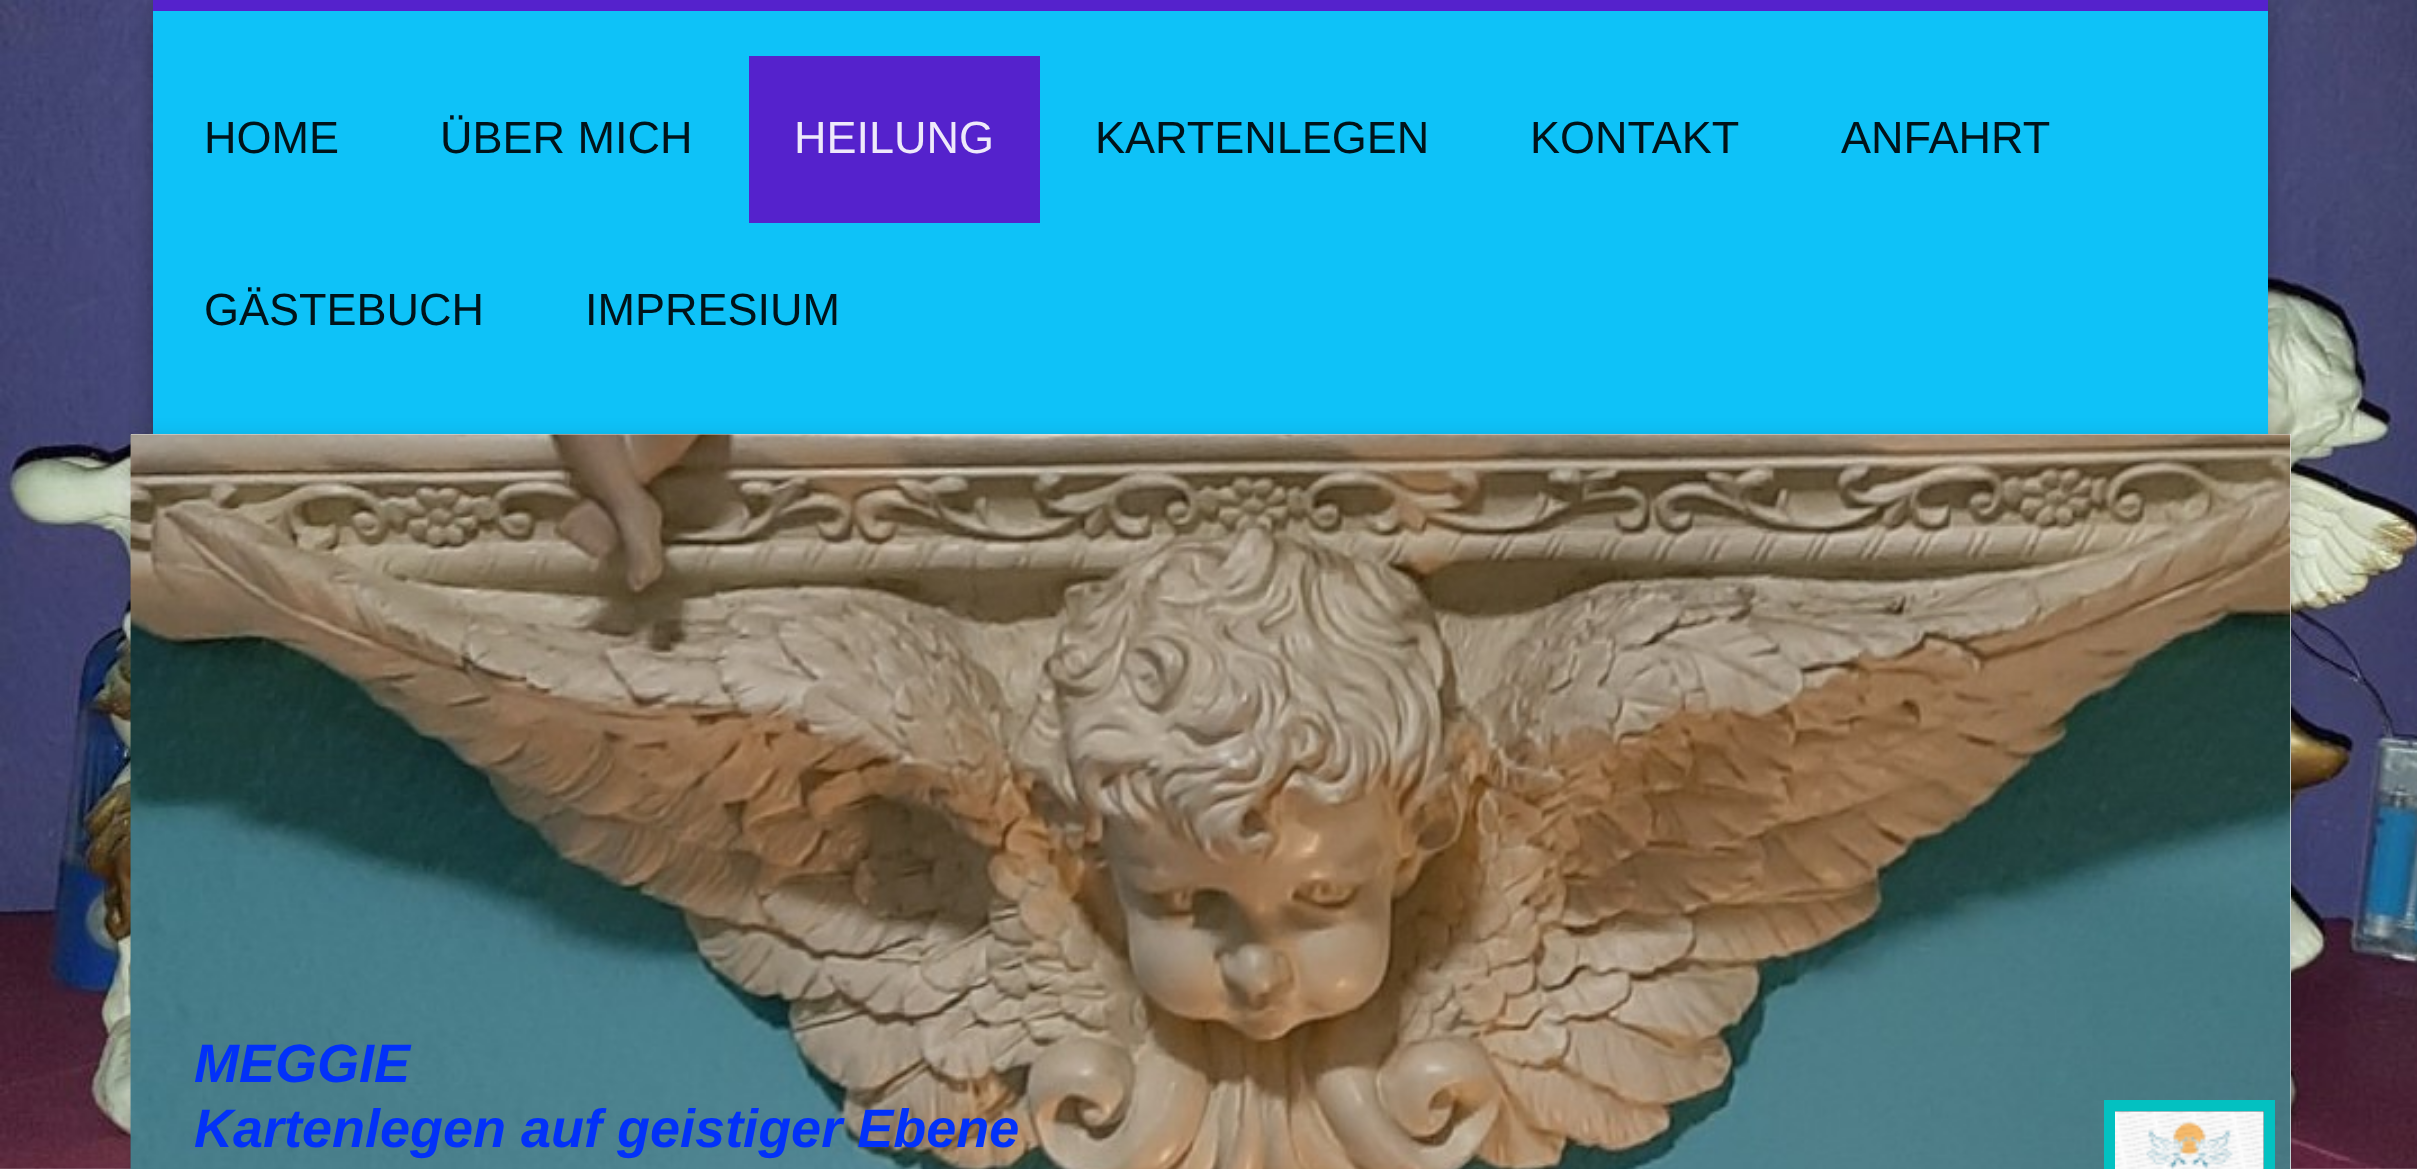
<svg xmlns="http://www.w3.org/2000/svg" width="2417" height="1169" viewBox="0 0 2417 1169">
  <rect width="100%" height="100%" fill="rgb(255,255,255)"/>
  <image x="0" y="0" width="2417" height="1169" href="pic1.png"/>
  <rect x="153" y="0" width="2115" height="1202" fill="rgba(0,0,0,0.3)" filter="blur(11px)"/>
  <rect x="153" y="11" width="2115" height="423" fill="rgb(14,194,248)"/>
  <rect x="153" y="0" width="2115" height="11" fill="rgb(85,34,204)"/>
  <g font-family="Liberation Sans" font-size="45" fill="rgb(1,19,25)">
    <text x="204" y="153">HOME</text>
    <text x="440" y="153">ÜBER MICH</text>
  </g>
  <rect x="749" y="56" width="291" height="167" fill="rgb(85,34,204)"/>
  <text x="794" y="153" font-family="Liberation Sans" font-size="45" fill="rgb(238,233,250)">HEILUNG</text>
  <g font-family="Liberation Sans" font-size="45" fill="rgb(1,19,25)">
    <text x="1095" y="153">KARTENLEGEN</text>
    <text x="1530" y="153">KONTAKT</text>
    <text x="1841" y="153">ANFAHRT</text>
    <text x="204" y="325">GÄSTEBUCH</text>
    <text x="585" y="325">IMPRESIUM</text>
  </g>
  <rect x="131" y="441" width="2160" height="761" fill="rgba(0,0,0,0.2)" filter="blur(11px)"/>
  <image x="130" y="434" width="1" height="735" href="pic2.png"/>
  <rect x="131" y="434" width="2160" height="735" fill="rgb(238,238,238)"/>
  <image x="130" y="434" width="2161" height="735" href="pic3.png"/>
  <g font-family="Liberation Sans" font-size="54" font-weight="bold" font-style="italic" fill="rgb(2,49,249)">
    <text>
      <tspan x="194" y="1082">MEGGIE</tspan>
      <tspan x="194" y="1147">Kartenlegen auf geistiger Ebene</tspan>
    </text>
  </g>
  <rect x="2109.5" y="1105.5" width="160" height="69" fill="none" stroke="rgb(3,193,193)" stroke-width="11"/>
  <image x="2115" y="1111" width="149" height="58" href="pic4.png"/>
</svg>
